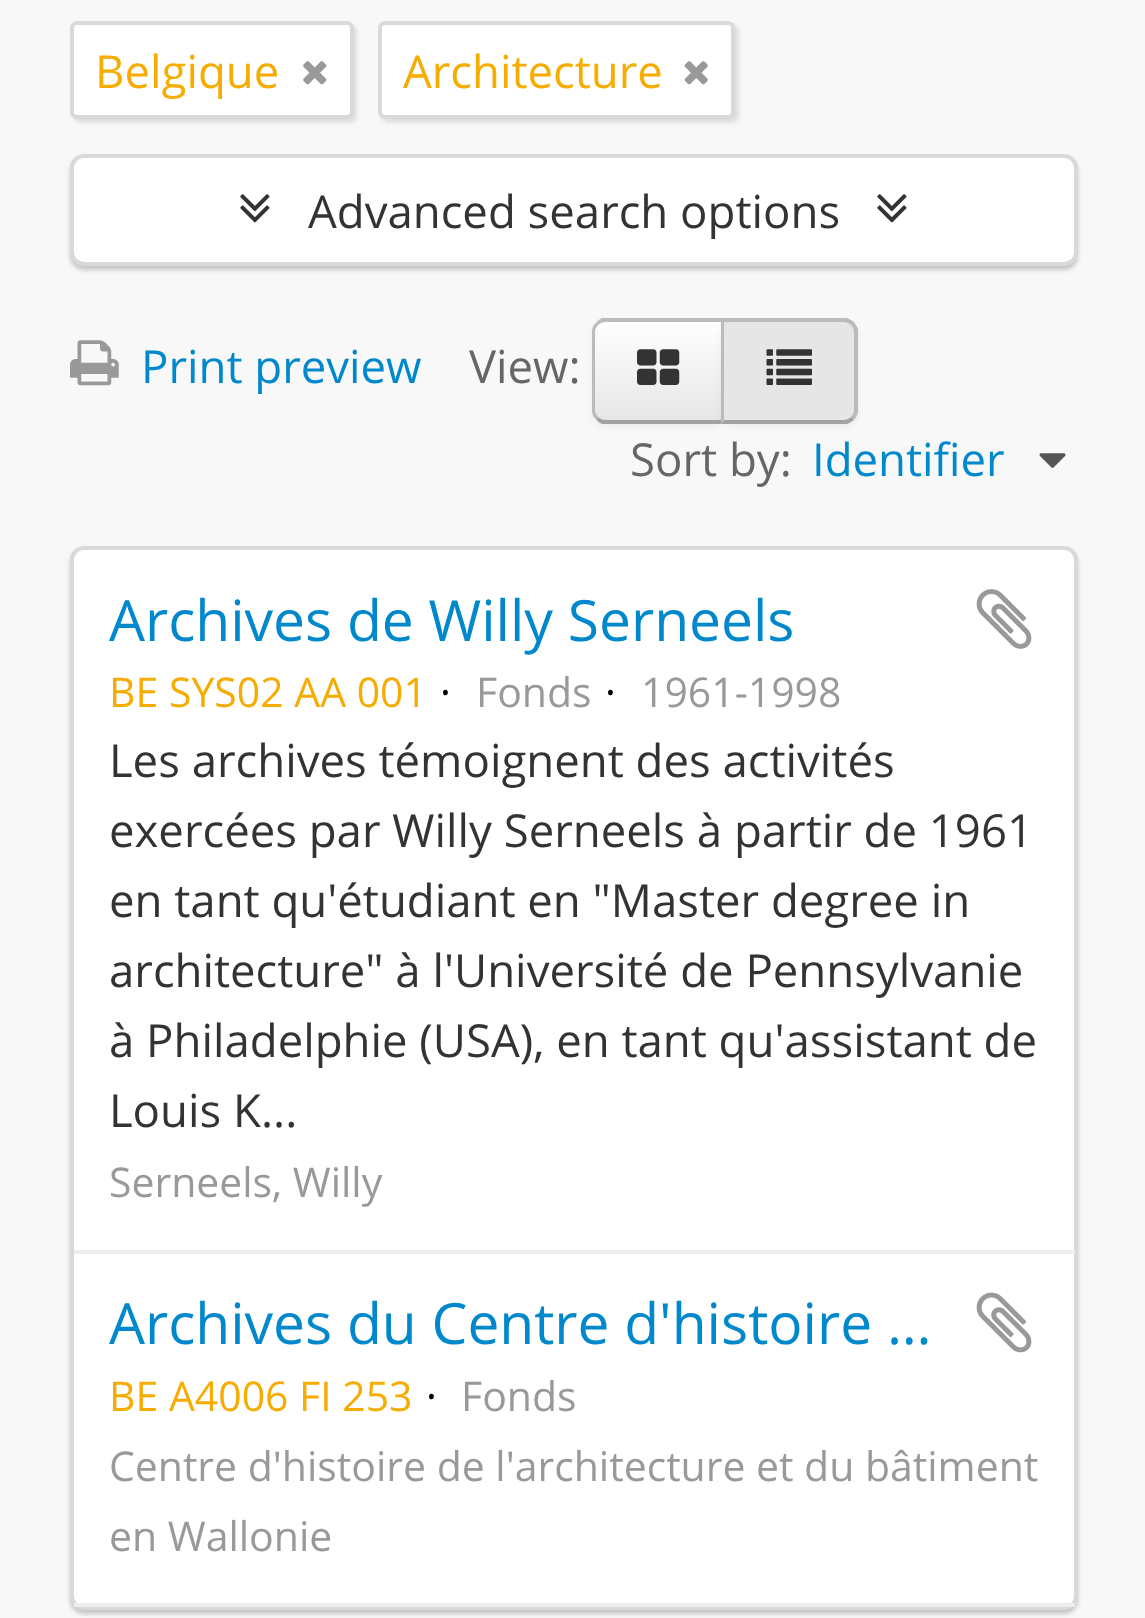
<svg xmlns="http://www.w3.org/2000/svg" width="1145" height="1618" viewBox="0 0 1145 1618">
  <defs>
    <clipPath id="clip1"><path d="M606 319H725V424H606C598.5 424 592 417.5 592 410V333C592 325.5 598.5 319 606 319Z"/></clipPath>
    <linearGradient id="g1" gradientUnits="userSpaceOnUse" x1="658" y1="322" x2="658" y2="420"><stop offset="0" stop-color="rgb(255,255,255)"/><stop offset="1" stop-color="rgb(230,230,230)"/></linearGradient>
  </defs>
  <rect width="100%" height="100%" fill="rgb(248,248,248)"/>
  <rect x="74" y="25" width="283" height="98" rx="7" fill="rgba(0,0,0,0.1)" filter="blur(2px)"/>
  <rect x="72" y="23" width="280" height="94" rx="5" fill="rgb(255,255,255)" stroke="rgb(217,217,217)" stroke-width="4"/>
  <text x="95" y="88" font-family="Open Sans" font-size="45.5" fill="rgb(246,172,0)">Belgique</text>
  <image x="303" y="61" width="24" height="24" href="pic1.png"/>
  <rect x="382" y="25" width="357" height="98" rx="7" fill="rgba(0,0,0,0.1)" filter="blur(2px)"/>
  <rect x="380" y="23" width="353" height="94" rx="5" fill="rgb(255,255,255)" stroke="rgb(217,217,217)" stroke-width="4"/>
  <text x="403" y="88" font-family="Open Sans" font-size="45.5" fill="rgb(246,172,0)">Architecture</text>
  <image x="684" y="61" width="24" height="24" href="pic2.png"/>
  <rect x="70" y="158" width="1008" height="112" rx="14" fill="rgba(0,0,0,0.2)" filter="blur(2px)"/>
  <rect x="72" y="156" width="1004" height="108" rx="12" fill="rgb(255,255,255)" stroke="rgb(217,217,217)" stroke-width="4"/>
  <image x="240" y="194" width="30" height="29" href="pic3.png"/>
  <text x="308" y="228" font-family="Open Sans" font-size="45.5" fill="rgb(51,51,51)">Advanced search options</text>
  <image x="877" y="194" width="30" height="29" href="pic4.png"/>
  <image x="70" y="340" width="49" height="46" href="pic5.png"/>
  <text x="141" y="383" font-family="Open Sans" font-size="45.5" fill="rgb(0,136,204)">Print preview</text>
  <text x="469" y="383" font-family="Open Sans" font-size="45.5" fill="rgb(102,102,102)">View:</text>
  <rect x="592" y="322" width="133" height="105" rx="14" fill="rgba(0,0,0,0.05)" filter="blur(3.5px)"/>
  <g clip-path="url(#clip1)">
    <rect x="592" y="322" width="129" height="98" fill="url(#g1)"/>
  </g>
  <path d="M606 322C603 322 600 323 598 325L596 323C597 321 600 319 602 318H724L721 322Z" fill="rgb(187,187,187)"/>
  <path d="M602 424C600 423 597 421 596 419L598 417C600 419 603 420 606 420H721L724 424Z" fill="rgb(162,162,162)"/>
  <path d="M596 419C593 417 592 413 592 410V332C592 329 593 325 596 323L598 325C596 327 595 330 595 332V410C595 412 596 415 598 417Z" fill="rgb(187,187,187)"/>
  <image x="637" y="349" width="43" height="36" href="pic6.png"/>
  <rect x="721" y="322" width="137" height="105" rx="14" fill="rgba(0,0,0,0.05)" filter="blur(3.5px)"/>
  <path d="M721 319H844C851.5 319 858 325.5 858 333V410C858 417.5 851.5 424 844 424H721Z" fill="rgb(230,230,230)"/>
  <path d="M721 318H847C850 319 852 321 854 322L851 325C849 323 846 322 844 322H724Z" fill="rgb(187,187,187)"/>
  <path d="M858 413C857 416 855 418 854 420L851 417C853 415 854 412 854 410V332C854 330 853 327 851 325L854 322C855 324 857 326 858 329Z" fill="rgb(187,187,187)"/>
  <path d="M847 424H721L724 420H844C846 420 849 419 851 417L854 420C852 421 850 423 847 424Z" fill="rgb(162,162,162)"/>
  <path d="M724 322L721 318V424L724 420Z" fill="rgb(187,187,187)"/>
  <image x="766" y="349" width="46" height="36" href="pic7.png"/>
  <text x="630" y="476" font-family="Open Sans" font-size="45.5" fill="rgb(102,102,102)">Sort by:</text>
  <text x="812" y="476" font-family="Open Sans" font-size="45.5" fill="rgb(0,136,204)">Identifier</text>
  <image x="1039" y="453" width="27" height="15" href="pic8.png"/>
  <rect x="70" y="550" width="1008" height="1064" rx="14" fill="rgba(0,0,0,0.2)" filter="blur(2px)"/>
  <rect x="72" y="548" width="1004" height="1060" rx="12" fill="rgb(255,255,255)" stroke="rgb(217,217,217)" stroke-width="4"/>
  <rect x="74" y="1250" width="1001" height="4" fill="rgb(238,238,238)"/>
  <text x="109" y="641" font-family="Open Sans" font-size="56.9" fill="rgb(0,136,204)">Archives de Willy Serneels</text>
  <image x="976" y="589" width="56" height="60" href="pic9.png"/>
  <text x="109" y="707" font-family="Open Sans" font-size="40.95" fill="rgb(246,172,0)">BE SYS02 AA 001</text>
  <text x="440" y="707" font-family="Open Sans" font-size="40.95" fill="rgb(0,0,0)">·</text>
  <text x="476" y="707" font-family="Open Sans" font-size="40.95" fill="rgb(153,153,153)">Fonds</text>
  <text x="605" y="707" font-family="Open Sans" font-size="40.95" fill="rgb(0,0,0)">·</text>
  <text x="641" y="707" font-family="Open Sans" font-size="40.95" fill="rgb(153,153,153)">1961-1998</text>
  <g font-family="Open Sans" font-size="45.5" fill="rgb(51,51,51)">
    <text>
      <tspan x="109" y="777">Les archives témoignent des activités</tspan>
      <tspan x="109" y="847">exercées par Willy Serneels à partir de 1961</tspan>
      <tspan x="109" y="917">en tant qu'étudiant en "Master degree in</tspan>
      <tspan x="109" y="987">architecture" à l'Université de Pennsylvanie</tspan>
      <tspan x="109" y="1057">à Philadelphie (USA), en tant qu'assistant de</tspan>
      <tspan x="109" y="1127">Louis K...</tspan>
    </text>
  </g>
  <text x="109" y="1197" font-family="Open Sans" font-size="40.95" fill="rgb(153,153,153)">Serneels, Willy</text>
  <rect x="74" y="1603" width="1001" height="4" fill="rgb(238,238,238)"/>
  <text x="109" y="1344" font-family="Open Sans" font-size="56.9" fill="rgb(0,136,204)">Archives du Centre d'histoire …</text>
  <image x="976" y="1292" width="56" height="61" href="pic10.png"/>
  <text x="109" y="1411" font-family="Open Sans" font-size="40.95" fill="rgb(246,172,0)">BE A4006 FI 253</text>
  <text x="426" y="1411" font-family="Open Sans" font-size="40.95" fill="rgb(0,0,0)">·</text>
  <g font-family="Open Sans" font-size="40.95" fill="rgb(153,153,153)">
    <text x="461" y="1411">Fonds</text>
    <text>
      <tspan x="109" y="1481">Centre d'histoire de l'architecture et du bâtiment</tspan>
      <tspan x="109" y="1551">en Wallonie</tspan>
    </text>
  </g>
</svg>
